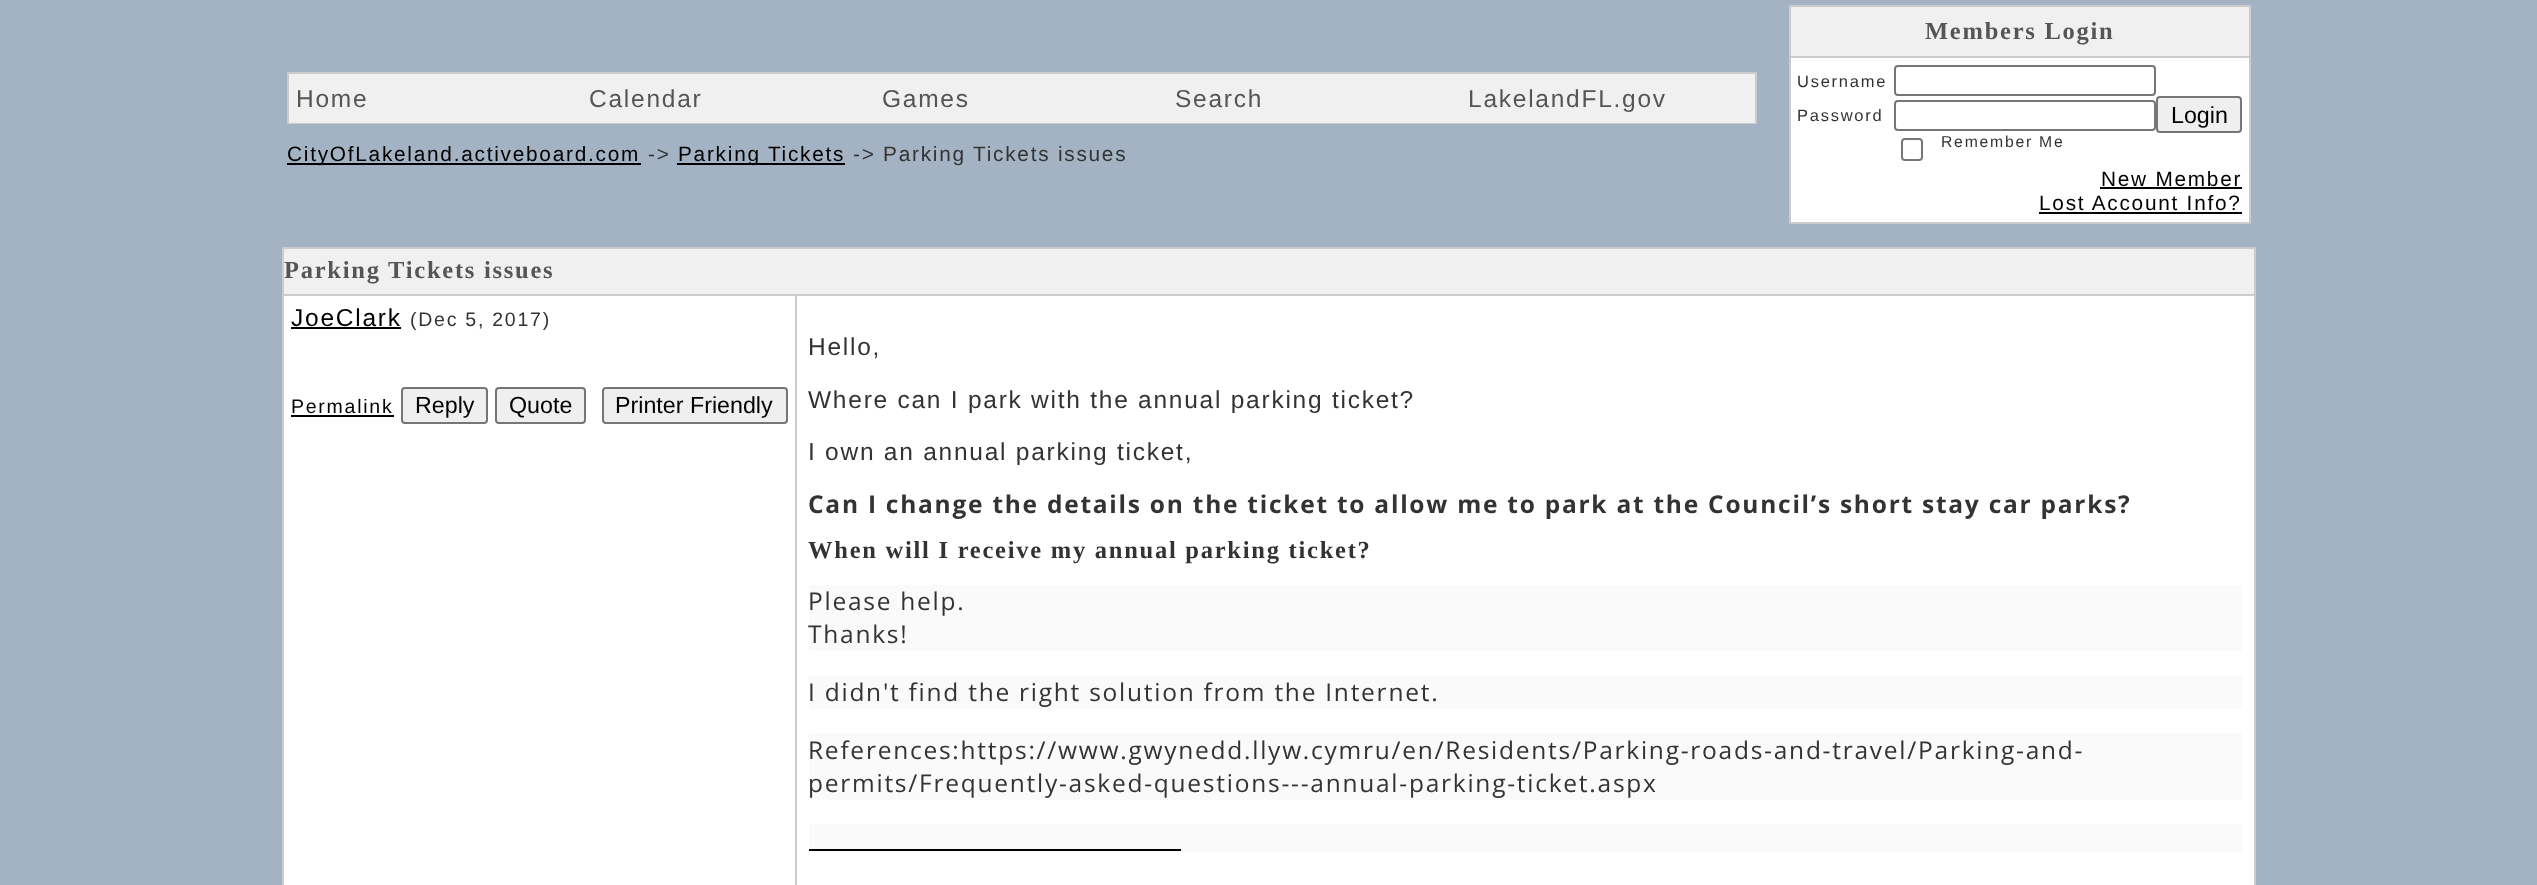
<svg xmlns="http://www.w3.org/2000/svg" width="2537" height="885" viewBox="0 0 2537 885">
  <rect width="100%" height="100%" fill="rgb(163,179,195)"/>
  <rect x="288" y="73" width="1468" height="50" fill="none" stroke="rgb(204,204,204)" stroke-width="2"/>
  <rect x="289" y="74" width="1466" height="49" fill="rgb(240,240,240)"/>
  <g font-family="Liberation Sans" font-size="24.5" letter-spacing="1.75" fill="rgb(85,85,85)">
    <text x="296" y="107">Home</text>
    <text x="589" y="107">Calendar</text>
    <text x="882" y="107">Games</text>
    <text x="1175" y="107">Search</text>
    <text x="1468" y="107">LakelandFL.gov</text>
  </g>
  <rect x="287" y="163" width="354" height="2" fill="rgb(0,0,0)"/>
  <text x="287" y="161" font-family="Liberation Sans" font-size="20.8" letter-spacing="1.75" fill="rgb(0,0,0)">CityOfLakeland.activeboard.com</text>
  <text x="648" y="161" font-family="Liberation Sans" font-size="20.8" letter-spacing="1.75" fill="rgb(51,51,51)">-&gt;</text>
  <rect x="677" y="163" width="168" height="2" fill="rgb(0,0,0)"/>
  <text x="678" y="161" font-family="Liberation Sans" font-size="20.8" letter-spacing="1.75" fill="rgb(0,0,0)">Parking Tickets</text>
  <text x="853" y="161" font-family="Liberation Sans" font-size="20.8" letter-spacing="1.75" fill="rgb(51,51,51)">-&gt; Parking Tickets issues</text>
  <rect x="1791" y="58" width="458" height="164" fill="rgb(255,255,255)"/>
  <rect x="1789" y="5" width="462" height="2" fill="rgb(204,204,204)"/>
  <rect x="2249" y="5" width="2" height="219" fill="rgb(204,204,204)"/>
  <rect x="1789" y="222" width="462" height="2" fill="rgb(204,204,204)"/>
  <rect x="1789" y="5" width="2" height="219" fill="rgb(204,204,204)"/>
  <rect x="1791" y="7" width="458" height="49" fill="rgb(240,240,240)"/>
  <rect x="1789" y="56" width="462" height="2" fill="rgb(204,204,204)"/>
  <text x="1925" y="39" font-family="Liberation Serif" font-size="24.5" font-weight="bold" letter-spacing="1.75" fill="rgb(85,85,85)">Members Login</text>
  <text x="1797" y="87" font-family="Liberation Sans" font-size="16.5" letter-spacing="1.75" fill="rgb(51,51,51)">Username</text>
  <rect x="1895" y="66" width="260" height="29" rx="3" fill="none" stroke="rgb(118,118,118)" stroke-width="2"/>
  <text x="1797" y="121" font-family="Liberation Sans" font-size="16.5" letter-spacing="1.75" fill="rgb(51,51,51)">Password</text>
  <rect x="1895" y="101" width="260" height="29" rx="3" fill="none" stroke="rgb(118,118,118)" stroke-width="2"/>
  <rect x="2157" y="97" width="84" height="35" rx="3" fill="rgb(239,239,239)" stroke="rgb(118,118,118)" stroke-width="2"/>
  <text x="2171" y="123" font-family="Liberation Sans" font-size="23.25" fill="rgb(0,0,0)">Login</text>
  <rect x="1902" y="139" width="20" height="21" rx="3" fill="none" stroke="rgb(118,118,118)" stroke-width="2"/>
  <text x="1941" y="147" font-family="Liberation Sans" font-size="15.75" letter-spacing="1.75" fill="rgb(51,51,51)">Remember Me</text>
  <text x="2101" y="186" font-family="Liberation Sans" font-size="20.8" letter-spacing="1.75" fill="rgb(0,0,0)">New Member</text>
  <rect x="2100" y="187" width="142" height="2" fill="rgb(0,0,0)"/>
  <text x="2039" y="210" font-family="Liberation Sans" font-size="20.8" letter-spacing="1.75" fill="rgb(0,0,0)">Lost Account Info?</text>
  <rect x="2039" y="212" width="203" height="2" fill="rgb(0,0,0)"/>
  <rect x="284" y="296" width="1970" height="589" fill="rgb(255,255,255)"/>
  <rect x="282" y="247" width="1974" height="2" fill="rgb(204,204,204)"/>
  <rect x="2254" y="247" width="2" height="638" fill="rgb(204,204,204)"/>
  <rect x="282" y="247" width="2" height="638" fill="rgb(204,204,204)"/>
  <rect x="284" y="249" width="1970" height="45" fill="rgb(240,240,240)"/>
  <text x="284" y="278" font-family="Liberation Serif" font-size="24.5" font-weight="bold" letter-spacing="1.75" fill="rgb(85,85,85)">Parking Tickets issues</text>
  <rect x="795" y="294" width="1461" height="2" fill="rgb(204,204,204)"/>
  <rect x="795" y="294" width="2" height="591" fill="rgb(204,204,204)"/>
  <rect x="282" y="294" width="514" height="2" fill="rgb(204,204,204)"/>
  <text x="291" y="326" font-family="Liberation Sans" font-size="24.5" letter-spacing="1.75" fill="rgb(0,0,0)">JoeClark</text>
  <rect x="291" y="327" width="110" height="2" fill="rgb(0,0,0)"/>
  <text x="410" y="326" font-family="Liberation Sans" font-size="19.5" letter-spacing="1.75" fill="rgb(51,51,51)">(Dec 5, 2017)</text>
  <text x="291" y="413" font-family="Liberation Sans" font-size="19.5" letter-spacing="1.75" fill="rgb(0,0,0)">Permalink</text>
  <rect x="291" y="415" width="103" height="2" fill="rgb(0,0,0)"/>
  <rect x="402" y="388" width="85" height="35" rx="3" fill="rgb(239,239,239)" stroke="rgb(118,118,118)" stroke-width="2"/>
  <text x="415" y="413" font-family="Liberation Sans" font-size="23.25" fill="rgb(0,0,0)">Reply</text>
  <rect x="496" y="388" width="89" height="35" rx="3" fill="rgb(239,239,239)" stroke="rgb(118,118,118)" stroke-width="2"/>
  <text x="509" y="413" font-family="Liberation Sans" font-size="23.25" fill="rgb(0,0,0)">Quote</text>
  <rect x="603" y="388" width="184" height="35" rx="3" fill="rgb(239,239,239)" stroke="rgb(118,118,118)" stroke-width="2"/>
  <text x="615" y="413" font-family="Liberation Sans" font-size="23.25" fill="rgb(0,0,0)">Printer Friendly</text>
  <g font-family="Liberation Sans" font-size="24.5" letter-spacing="1.75" fill="rgb(51,51,51)">
    <text x="808" y="355">Hello,</text>
    <text x="808" y="408">Where can I park with the annual parking ticket?</text>
    <text x="808" y="460">I own an annual parking ticket,</text>
  </g>
  <text x="808" y="513" font-family="Open Sans" font-size="24.5" font-weight="bold" letter-spacing="1.75" fill="rgb(51,51,51)">Can I change the details on the ticket to allow me to park at the Council’s short stay car parks?</text>
  <text x="808" y="558" font-family="Liberation Serif" font-size="24.5" font-weight="bold" letter-spacing="1.75" fill="rgb(51,51,51)">When will I receive my annual parking ticket?</text>
  <rect x="809" y="585" width="1433" height="66" fill="rgb(250,250,250)"/>
  <g font-family="Open Sans" font-size="24.5" letter-spacing="1.75" fill="rgb(51,51,51)">
    <text>
      <tspan x="808" y="610">Please help.</tspan>
      <tspan x="808" y="643">Thanks!</tspan>
    </text>
  </g>
  <rect x="809" y="676" width="1433" height="33" fill="rgb(250,250,250)"/>
  <text x="808" y="701" font-family="Open Sans" font-size="24.5" letter-spacing="1.75" fill="rgb(51,51,51)">I didn't find the right solution from the Internet.</text>
  <rect x="809" y="733" width="1433" height="67" fill="rgb(250,250,250)"/>
  <g font-family="Open Sans" font-size="24.5" letter-spacing="1.75" fill="rgb(51,51,51)">
    <text>
      <tspan x="808" y="759">References:https://www.gwynedd.llyw.cymru/en/Residents/Parking-roads-and-travel/Parking-and-</tspan>
      <tspan x="808" y="792">permits/Frequently-asked-questions---annual-parking-ticket.aspx</tspan>
    </text>
  </g>
  <rect x="809" y="824" width="1433" height="28" fill="rgb(250,250,250)"/>
  <rect x="809" y="849" width="372" height="2" fill="rgb(0,0,0)"/>
</svg>
